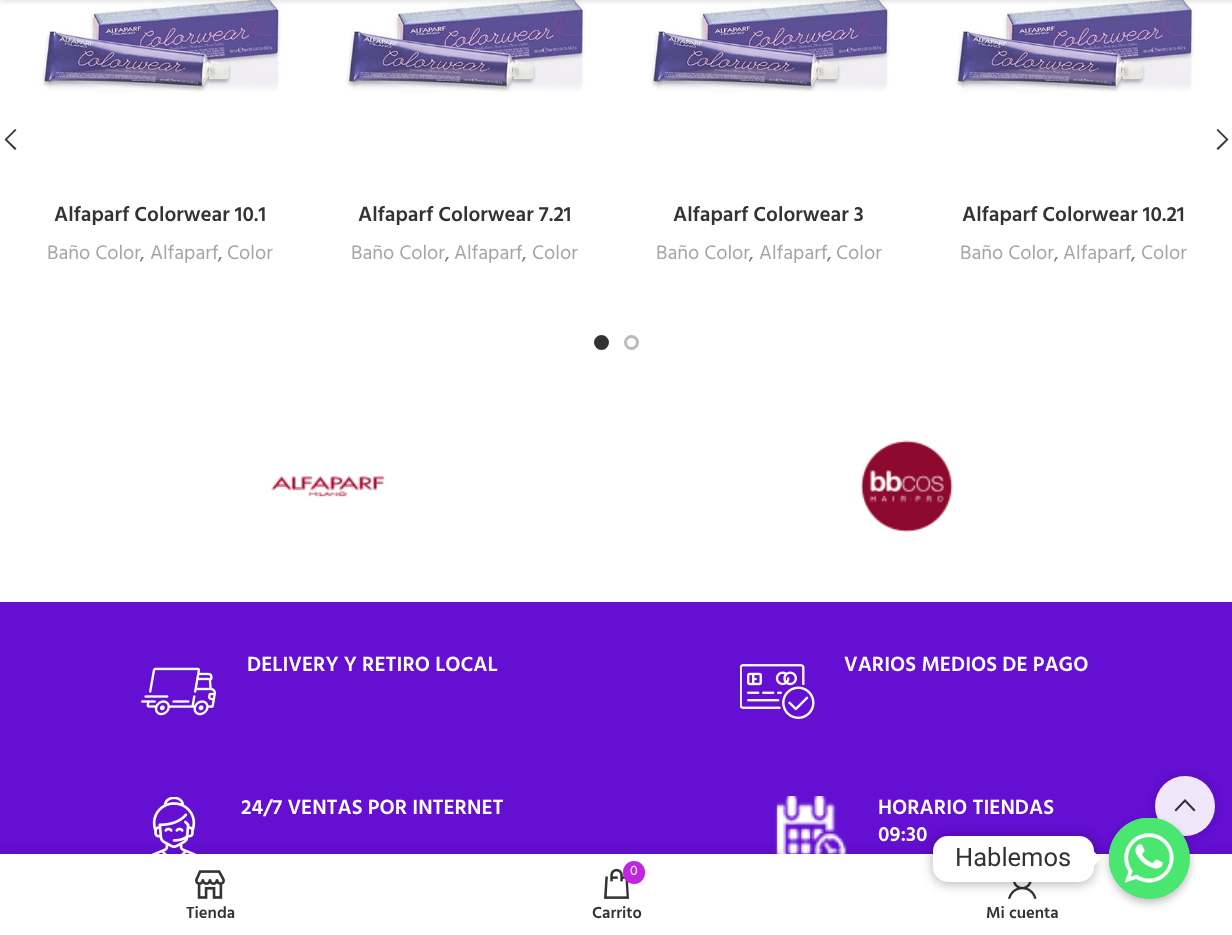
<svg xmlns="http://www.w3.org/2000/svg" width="1232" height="935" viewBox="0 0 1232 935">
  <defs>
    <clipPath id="clip1"><path d="M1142 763H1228V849H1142ZM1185 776C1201.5 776 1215 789.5 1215 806C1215 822.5 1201.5 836 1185 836C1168.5 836 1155 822.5 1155 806C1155 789.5 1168.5 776 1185 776Z" clip-rule="evenodd"/></clipPath>
  </defs>
  <rect width="100%" height="100%" fill="rgb(255,255,255)"/>
  <image x="39" y="0" width="242" height="92" href="pic1.png"/>
  <image x="344" y="0" width="241" height="92" href="pic2.png"/>
  <image x="648" y="0" width="242" height="92" href="pic3.png"/>
  <image x="953" y="0" width="241" height="92" href="pic2.png"/>
  <rect x="0" y="-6" width="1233" height="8" fill="rgba(0,0,0,0.1)" filter="blur(2px)"/>
  <path d="M16.5 130L7 139.5L16.5 148.5L15 150L4.5 139.5L15 129Z" fill="rgb(51,51,51)"/>
  <path d="M1218 129L1228.5 139.5L1218 150L1216.5 148.5L1226 139.5L1216.5 130Z" fill="rgb(51,51,51)"/>
  <text x="54" y="221" font-family="Hind" font-size="21" font-weight="600" fill="rgb(51,51,51)">Alfaparf Colorwear 10.1</text>
  <text x="47" y="259" font-family="Hind" font-size="20" fill="rgb(165,165,165)">Baño Color</text>
  <text x="140" y="259" font-family="Hind" font-size="20" fill="rgb(119,119,119)">,</text>
  <text x="150" y="259" font-family="Hind" font-size="20" fill="rgb(165,165,165)">Alfaparf</text>
  <text x="218" y="259" font-family="Hind" font-size="20" fill="rgb(119,119,119)">,</text>
  <text x="227" y="259" font-family="Hind" font-size="20" fill="rgb(165,165,165)">Color</text>
  <text x="358" y="221" font-family="Hind" font-size="21" font-weight="600" fill="rgb(51,51,51)">Alfaparf Colorwear 7.21</text>
  <text x="351" y="259" font-family="Hind" font-size="20" fill="rgb(165,165,165)">Baño Color</text>
  <text x="445" y="259" font-family="Hind" font-size="20" fill="rgb(119,119,119)">,</text>
  <text x="454" y="259" font-family="Hind" font-size="20" fill="rgb(165,165,165)">Alfaparf</text>
  <text x="522" y="259" font-family="Hind" font-size="20" fill="rgb(119,119,119)">,</text>
  <text x="532" y="259" font-family="Hind" font-size="20" fill="rgb(165,165,165)">Color</text>
  <text x="673" y="221" font-family="Hind" font-size="21" font-weight="600" fill="rgb(51,51,51)">Alfaparf Colorwear 3</text>
  <text x="656" y="259" font-family="Hind" font-size="20" fill="rgb(165,165,165)">Baño Color</text>
  <text x="749" y="259" font-family="Hind" font-size="20" fill="rgb(119,119,119)">,</text>
  <text x="759" y="259" font-family="Hind" font-size="20" fill="rgb(165,165,165)">Alfaparf</text>
  <text x="827" y="259" font-family="Hind" font-size="20" fill="rgb(119,119,119)">,</text>
  <text x="836" y="259" font-family="Hind" font-size="20" fill="rgb(165,165,165)">Color</text>
  <text x="962" y="221" font-family="Hind" font-size="21" font-weight="600" fill="rgb(51,51,51)">Alfaparf Colorwear 10.21</text>
  <text x="960" y="259" font-family="Hind" font-size="20" fill="rgb(165,165,165)">Baño Color</text>
  <text x="1054" y="259" font-family="Hind" font-size="20" fill="rgb(119,119,119)">,</text>
  <text x="1063" y="259" font-family="Hind" font-size="20" fill="rgb(165,165,165)">Alfaparf</text>
  <text x="1131" y="259" font-family="Hind" font-size="20" fill="rgb(119,119,119)">,</text>
  <text x="1141" y="259" font-family="Hind" font-size="20" fill="rgb(165,165,165)">Color</text>
  <circle cx="601.5" cy="342.5" r="6" fill="rgb(51,51,51)" stroke="rgb(51,51,51)" stroke-width="3"/>
  <circle cx="631.5" cy="342.5" r="6" fill="none" stroke="rgb(187,187,187)" stroke-width="3"/>
  <image x="271" y="476" width="114" height="21" href="pic4.png"/>
  <image x="860" y="440" width="93" height="93" href="pic5.png"/>
  <rect x="0" y="602" width="1232" height="252" fill="rgb(100,15,209)"/>
  <text x="247" y="671" font-family="Hind" font-size="21" font-weight="600" fill="rgb(255,255,255)">DELIVERY Y RETIRO LOCAL</text>
  <image x="141" y="667" width="75" height="49" href="pic6.png"/>
  <image x="740" y="664" width="75" height="55" href="pic7.png"/>
  <text x="844" y="671" font-family="Hind" font-size="21" font-weight="600" fill="rgb(255,255,255)">VARIOS MEDIOS DE PAGO</text>
  <image x="151" y="797" width="46" height="57" href="pic8.png"/>
  <text x="241" y="814" font-family="Hind" font-size="21" font-weight="600" fill="rgb(255,255,255)">24/7 VENTAS POR INTERNET</text>
  <image x="775" y="796" width="72" height="58" href="pic9.png"/>
  <g font-family="Hind" font-size="21" font-weight="600" fill="rgb(255,255,255)">
    <text>
      <tspan x="878" y="814">HORARIO TIENDAS</tspan>
      <tspan x="878" y="841">09:30</tspan>
    </text>
  </g>
  <g clip-path="url(#clip1)">
    <rect x="1155" y="776" width="60" height="60" rx="30" fill="rgba(0,0,0,0.17)" filter="blur(4px)"/>
  </g>
  <circle cx="1185" cy="806" r="30" fill="rgba(255,255,255,0.9)"/>
  <path d="M1185 799L1195.5 810L1194 811.5L1185 802L1176 811.5L1174.5 810Z" fill="rgb(51,51,51)"/>
  <rect x="0" y="854" width="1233" height="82" fill="rgba(0,0,0,0.12)" filter="blur(7px)"/>
  <rect x="0" y="854" width="1232" height="81" fill="rgb(255,255,255)"/>
  <rect x="1109" y="822" width="81" height="81" rx="40.5" fill="rgba(0,0,0,0.25)" filter="blur(4.5px)"/>
  <circle cx="1149.5" cy="858.5" r="40.5" fill="rgb(73,230,112)"/>
  <image x="1109" y="818" width="81" height="81" href="pic10.png"/>
  <image x="1008" y="882" width="29" height="17" href="pic13.png"/>
  <rect x="933" y="837" width="161" height="47" rx="15" fill="rgba(0,0,0,0.15)" filter="blur(6px)"/>
  <rect x="933" y="837" width="161" height="47" rx="15" fill="rgba(0,0,0,0.15)" filter="blur(6px)"/>
  <rect x="933" y="836" width="161" height="46" rx="15" fill="rgb(255,255,255)"/>
  <text x="955" y="866" font-family="Roboto" font-size="25.5" fill="rgb(51,51,51)">Hablemos</text>
  <path d="M1093.5 866V851L1101 859Z" fill="rgb(255,255,255)"/>
  <image x="195" y="870" width="30" height="29" href="pic11.png"/>
  <text x="186" y="918" font-family="Hind" font-size="16.5" font-weight="600" fill="rgb(51,51,51)">Tienda</text>
  <image x="604" y="868" width="25" height="31" href="pic12.png"/>
  <rect x="623" y="861" width="22" height="23" rx="11" fill="rgb(195,36,226)"/>
  <text x="630" y="875" font-family="Hind" font-size="14" fill="rgb(255,255,255)">0</text>
  <g font-family="Hind" font-size="16.5" font-weight="600" fill="rgb(51,51,51)">
    <text x="592" y="918">Carrito</text>
    <text x="986" y="918">Mi cuenta</text>
  </g>
</svg>
